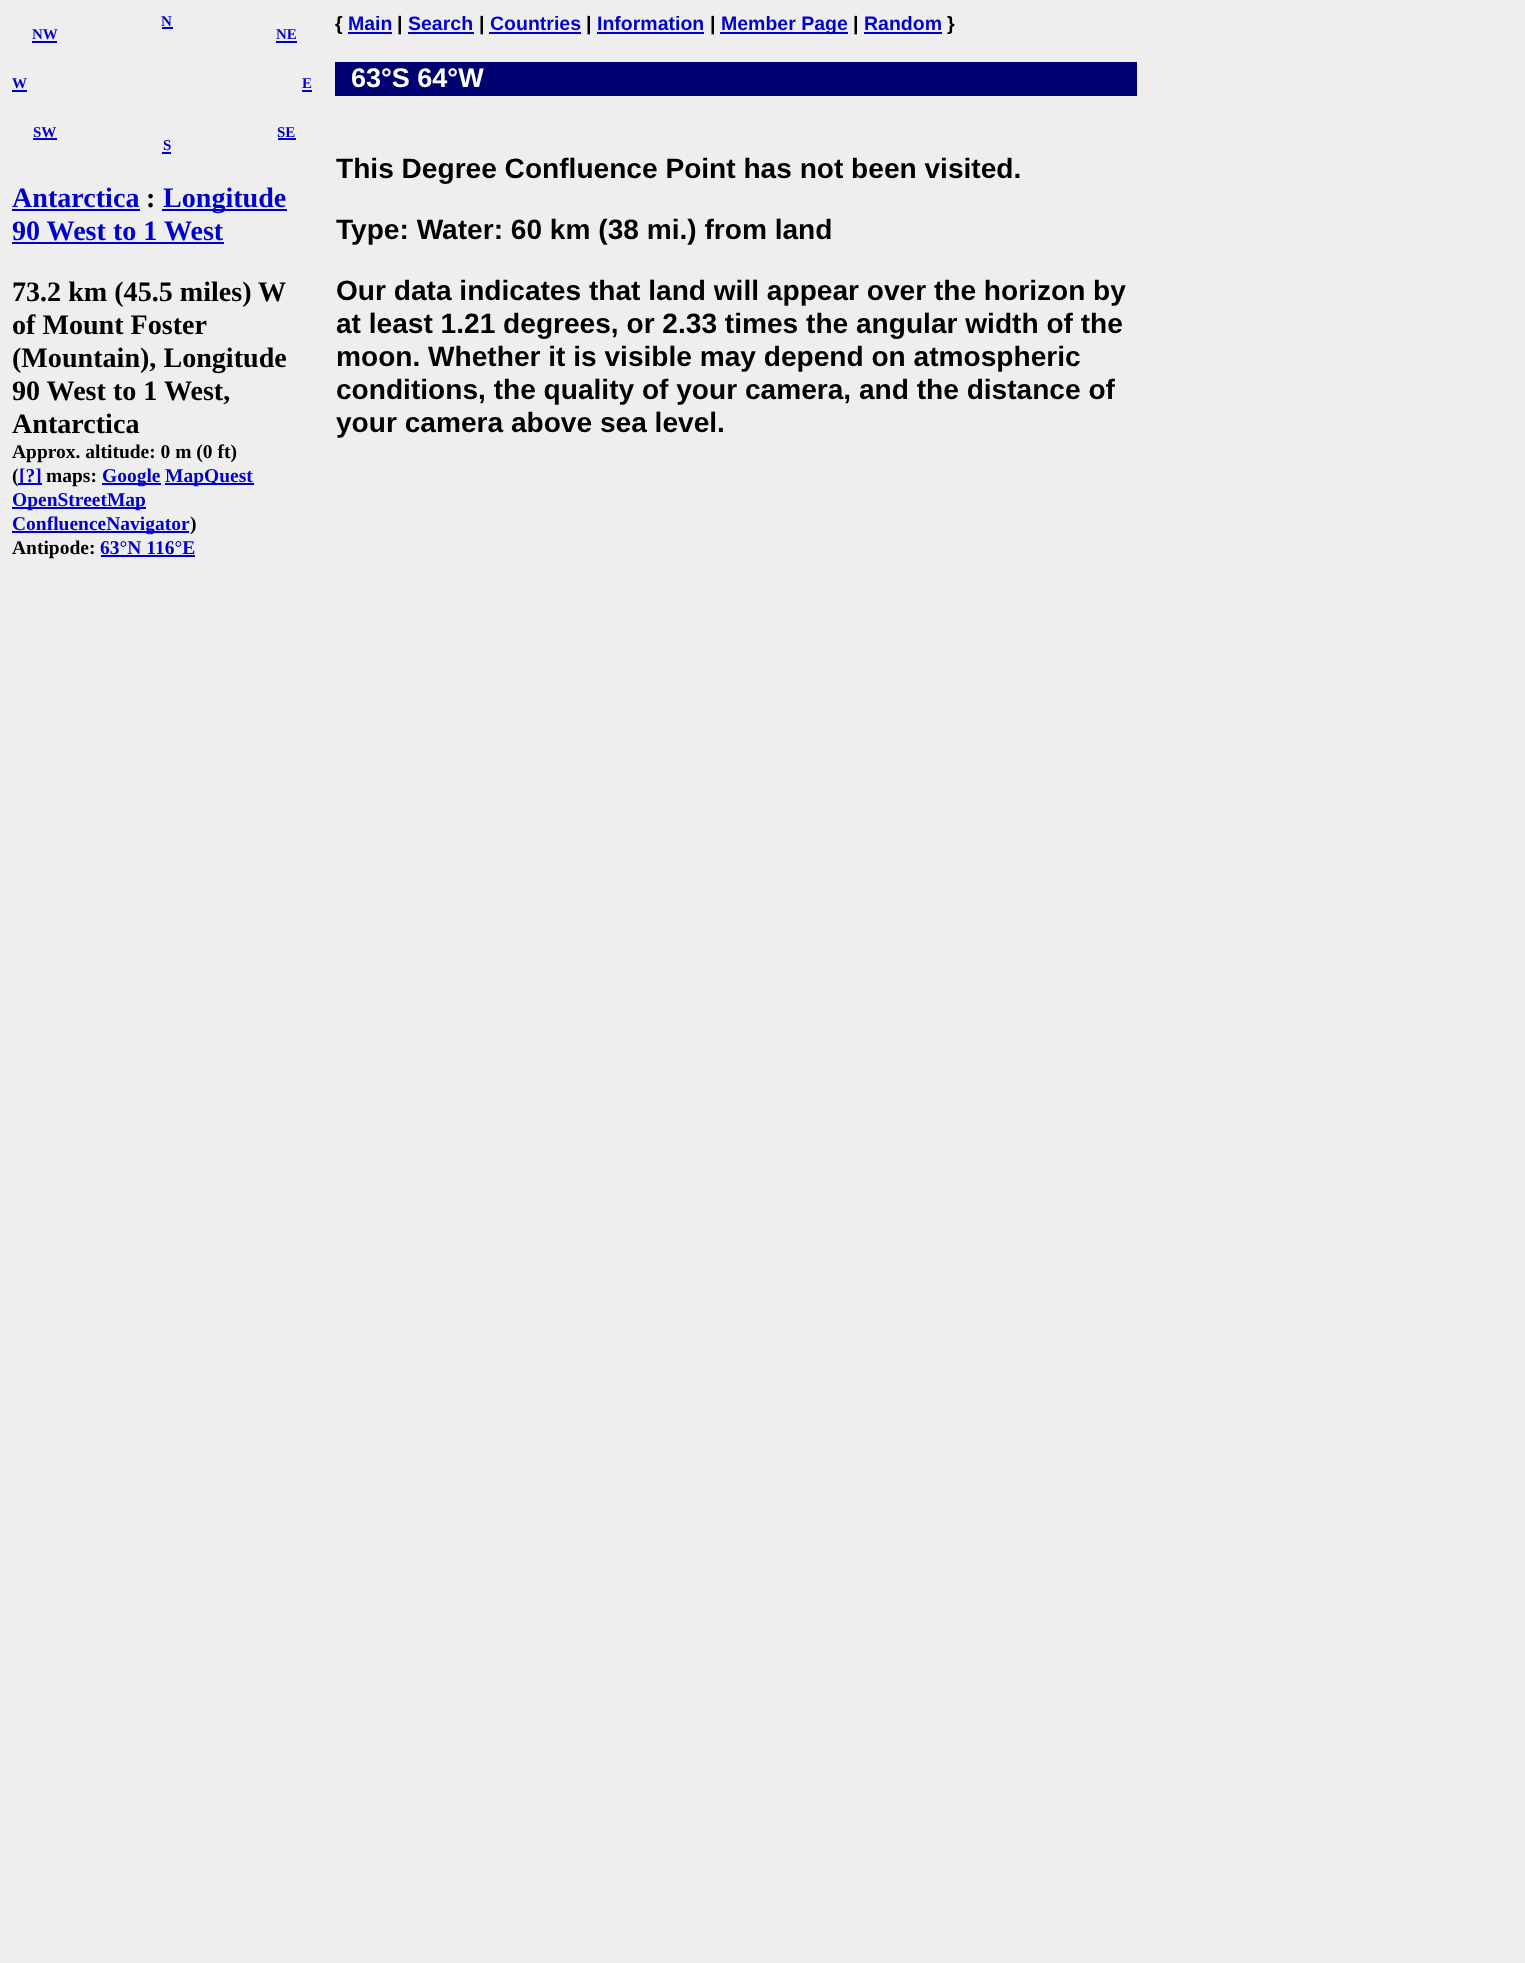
<svg xmlns="http://www.w3.org/2000/svg" width="1525" height="1963" viewBox="0 0 1525 1963">
  <rect width="100%" height="100%" fill="rgb(238,238,238)"/>
  <text x="12" y="88" font-family="Liberation Serif" font-size="15" font-weight="bold" fill="rgb(0,0,204)">W</text>
  <rect x="12" y="90" width="15" height="2" fill="rgb(0,0,204)"/>
  <text x="161" y="26" font-family="Liberation Serif" font-size="15" font-weight="bold" fill="rgb(0,0,204)">N</text>
  <rect x="162" y="27" width="11" height="2" fill="rgb(0,0,204)"/>
  <text x="32" y="39" font-family="Liberation Serif" font-size="15" font-weight="bold" fill="rgb(0,0,204)">NW</text>
  <rect x="32" y="41" width="25" height="2" fill="rgb(0,0,204)"/>
  <text x="276" y="39" font-family="Liberation Serif" font-size="15" font-weight="bold" fill="rgb(0,0,204)">NE</text>
  <rect x="276" y="41" width="21" height="2" fill="rgb(0,0,204)"/>
  <text x="33" y="137" font-family="Liberation Serif" font-size="15" font-weight="bold" fill="rgb(0,0,204)">SW</text>
  <rect x="33" y="138" width="24" height="2" fill="rgb(0,0,204)"/>
  <text x="277" y="137" font-family="Liberation Serif" font-size="15" font-weight="bold" fill="rgb(0,0,204)">SE</text>
  <rect x="278" y="138" width="18" height="2" fill="rgb(0,0,204)"/>
  <text x="163" y="150" font-family="Liberation Serif" font-size="15" font-weight="bold" fill="rgb(0,0,204)">S</text>
  <rect x="162" y="152" width="9" height="2" fill="rgb(0,0,204)"/>
  <text x="302" y="88" font-family="Liberation Serif" font-size="15" font-weight="bold" fill="rgb(0,0,204)">E</text>
  <rect x="302" y="90" width="10" height="2" fill="rgb(0,0,204)"/>
  <text x="12" y="207" font-family="Liberation Serif" font-size="28.1" font-weight="bold" fill="rgb(0,0,204)">Antarctica</text>
  <rect x="12" y="209" width="128" height="2" fill="rgb(0,0,204)"/>
  <text x="146" y="207" font-family="Liberation Serif" font-size="28.1" font-weight="bold" fill="rgb(0,0,0)">:</text>
  <rect x="162" y="209" width="125" height="2" fill="rgb(0,0,204)"/>
  <g font-family="Liberation Serif" font-size="28.1" font-weight="bold" fill="rgb(0,0,204)">
    <text x="163" y="207">Longitude</text>
    <text x="12" y="240">90 West to 1 West</text>
  </g>
  <rect x="12" y="242" width="212" height="2" fill="rgb(0,0,204)"/>
  <g font-family="Liberation Serif" font-size="28.1" font-weight="bold" fill="rgb(0,0,0)">
    <text>
      <tspan x="12" y="301">73.2 km (45.5 miles) W</tspan>
      <tspan x="12" y="334">of Mount Foster</tspan>
      <tspan x="12" y="367">(Mountain), Longitude</tspan>
      <tspan x="12" y="400">90 West to 1 West,</tspan>
      <tspan x="12" y="433">Antarctica</tspan>
    </text>
  </g>
  <g font-family="Liberation Serif" font-size="19.5" font-weight="bold" fill="rgb(0,0,0)">
    <text>
      <tspan x="12" y="458">Approx. altitude: 0 m (0 ft)</tspan>
      <tspan x="12" y="482">(</tspan>
    </text>
  </g>
  <rect x="18" y="483" width="24" height="2" fill="rgb(0,0,204)"/>
  <text x="19" y="482" font-family="Liberation Serif" font-size="19.5" font-weight="bold" fill="rgb(0,0,204)">[?]</text>
  <text x="46" y="482" font-family="Liberation Serif" font-size="19.5" font-weight="bold" fill="rgb(0,0,0)">maps:</text>
  <rect x="102" y="483" width="59" height="2" fill="rgb(0,0,204)"/>
  <text x="102" y="482" font-family="Liberation Serif" font-size="19.5" font-weight="bold" fill="rgb(0,0,204)">Google</text>
  <rect x="165" y="483" width="89" height="2" fill="rgb(0,0,204)"/>
  <text x="165" y="482" font-family="Liberation Serif" font-size="19.5" font-weight="bold" fill="rgb(0,0,204)">MapQuest</text>
  <rect x="12" y="507" width="134" height="2" fill="rgb(0,0,204)"/>
  <text x="12" y="506" font-family="Liberation Serif" font-size="19.5" font-weight="bold" fill="rgb(0,0,204)">OpenStreetMap</text>
  <rect x="12" y="531" width="177" height="2" fill="rgb(0,0,204)"/>
  <text x="12" y="530" font-family="Liberation Serif" font-size="19.5" font-weight="bold" fill="rgb(0,0,204)">ConfluenceNavigator</text>
  <g font-family="Liberation Serif" font-size="19.5" font-weight="bold" fill="rgb(0,0,0)">
    <text x="190" y="530">)</text>
    <text x="12" y="554">Antipode:</text>
  </g>
  <text x="100" y="554" font-family="Liberation Serif" font-size="19.5" font-weight="bold" fill="rgb(0,0,204)">63°N 116°E</text>
  <rect x="101" y="555" width="94" height="2" fill="rgb(0,0,204)"/>
  <text x="335" y="30" font-family="Liberation Sans" font-size="19.5" font-weight="bold" fill="rgb(0,0,0)">{</text>
  <text x="348" y="30" font-family="Liberation Sans" font-size="19.5" font-weight="bold" fill="rgb(0,0,204)">Main</text>
  <rect x="348" y="32" width="44" height="2" fill="rgb(0,0,204)"/>
  <text x="397" y="30" font-family="Liberation Sans" font-size="19.5" font-weight="bold" fill="rgb(0,0,0)">|</text>
  <text x="408" y="30" font-family="Liberation Sans" font-size="19.5" font-weight="bold" fill="rgb(0,0,204)">Search</text>
  <rect x="408" y="32" width="66" height="2" fill="rgb(0,0,204)"/>
  <text x="479" y="30" font-family="Liberation Sans" font-size="19.5" font-weight="bold" fill="rgb(0,0,0)">|</text>
  <text x="490" y="30" font-family="Liberation Sans" font-size="19.5" font-weight="bold" fill="rgb(0,0,204)">Countries</text>
  <rect x="489" y="32" width="92" height="2" fill="rgb(0,0,204)"/>
  <text x="586" y="30" font-family="Liberation Sans" font-size="19.5" font-weight="bold" fill="rgb(0,0,0)">|</text>
  <text x="597" y="30" font-family="Liberation Sans" font-size="19.5" font-weight="bold" fill="rgb(0,0,204)">Information</text>
  <rect x="597" y="32" width="107" height="2" fill="rgb(0,0,204)"/>
  <text x="710" y="30" font-family="Liberation Sans" font-size="19.5" font-weight="bold" fill="rgb(0,0,0)">|</text>
  <rect x="720" y="32" width="128" height="2" fill="rgb(0,0,204)"/>
  <text x="721" y="30" font-family="Liberation Sans" font-size="19.5" font-weight="bold" fill="rgb(0,0,204)">Member Page</text>
  <text x="853" y="30" font-family="Liberation Sans" font-size="19.5" font-weight="bold" fill="rgb(0,0,0)">|</text>
  <text x="864" y="30" font-family="Liberation Sans" font-size="19.5" font-weight="bold" fill="rgb(0,0,204)">Random</text>
  <rect x="864" y="32" width="78" height="2" fill="rgb(0,0,204)"/>
  <text x="947" y="30" font-family="Liberation Sans" font-size="19.5" font-weight="bold" fill="rgb(0,0,0)">}</text>
  <rect x="335" y="62" width="802" height="34" fill="rgb(0,0,112)"/>
  <text x="351" y="87" font-family="Liberation Sans" font-size="27" font-weight="bold" fill="rgb(255,255,255)">63°S 64°W</text>
  <g font-family="Liberation Sans" font-size="28.1" font-weight="bold" fill="rgb(0,0,0)">
    <text x="336" y="178">This Degree Confluence Point has not been visited.</text>
    <text x="336" y="239">Type: Water: 60 km (38 mi.) from land</text>
    <text>
      <tspan x="336" y="300">Our data indicates that land will appear over the horizon by</tspan>
      <tspan x="336" y="333">at least 1.21 degrees, or 2.33 times the angular width of the</tspan>
      <tspan x="336" y="366">moon. Whether it is visible may depend on atmospheric</tspan>
      <tspan x="336" y="399">conditions, the quality of your camera, and the distance of</tspan>
      <tspan x="336" y="432">your camera above sea level.</tspan>
    </text>
  </g>
</svg>
